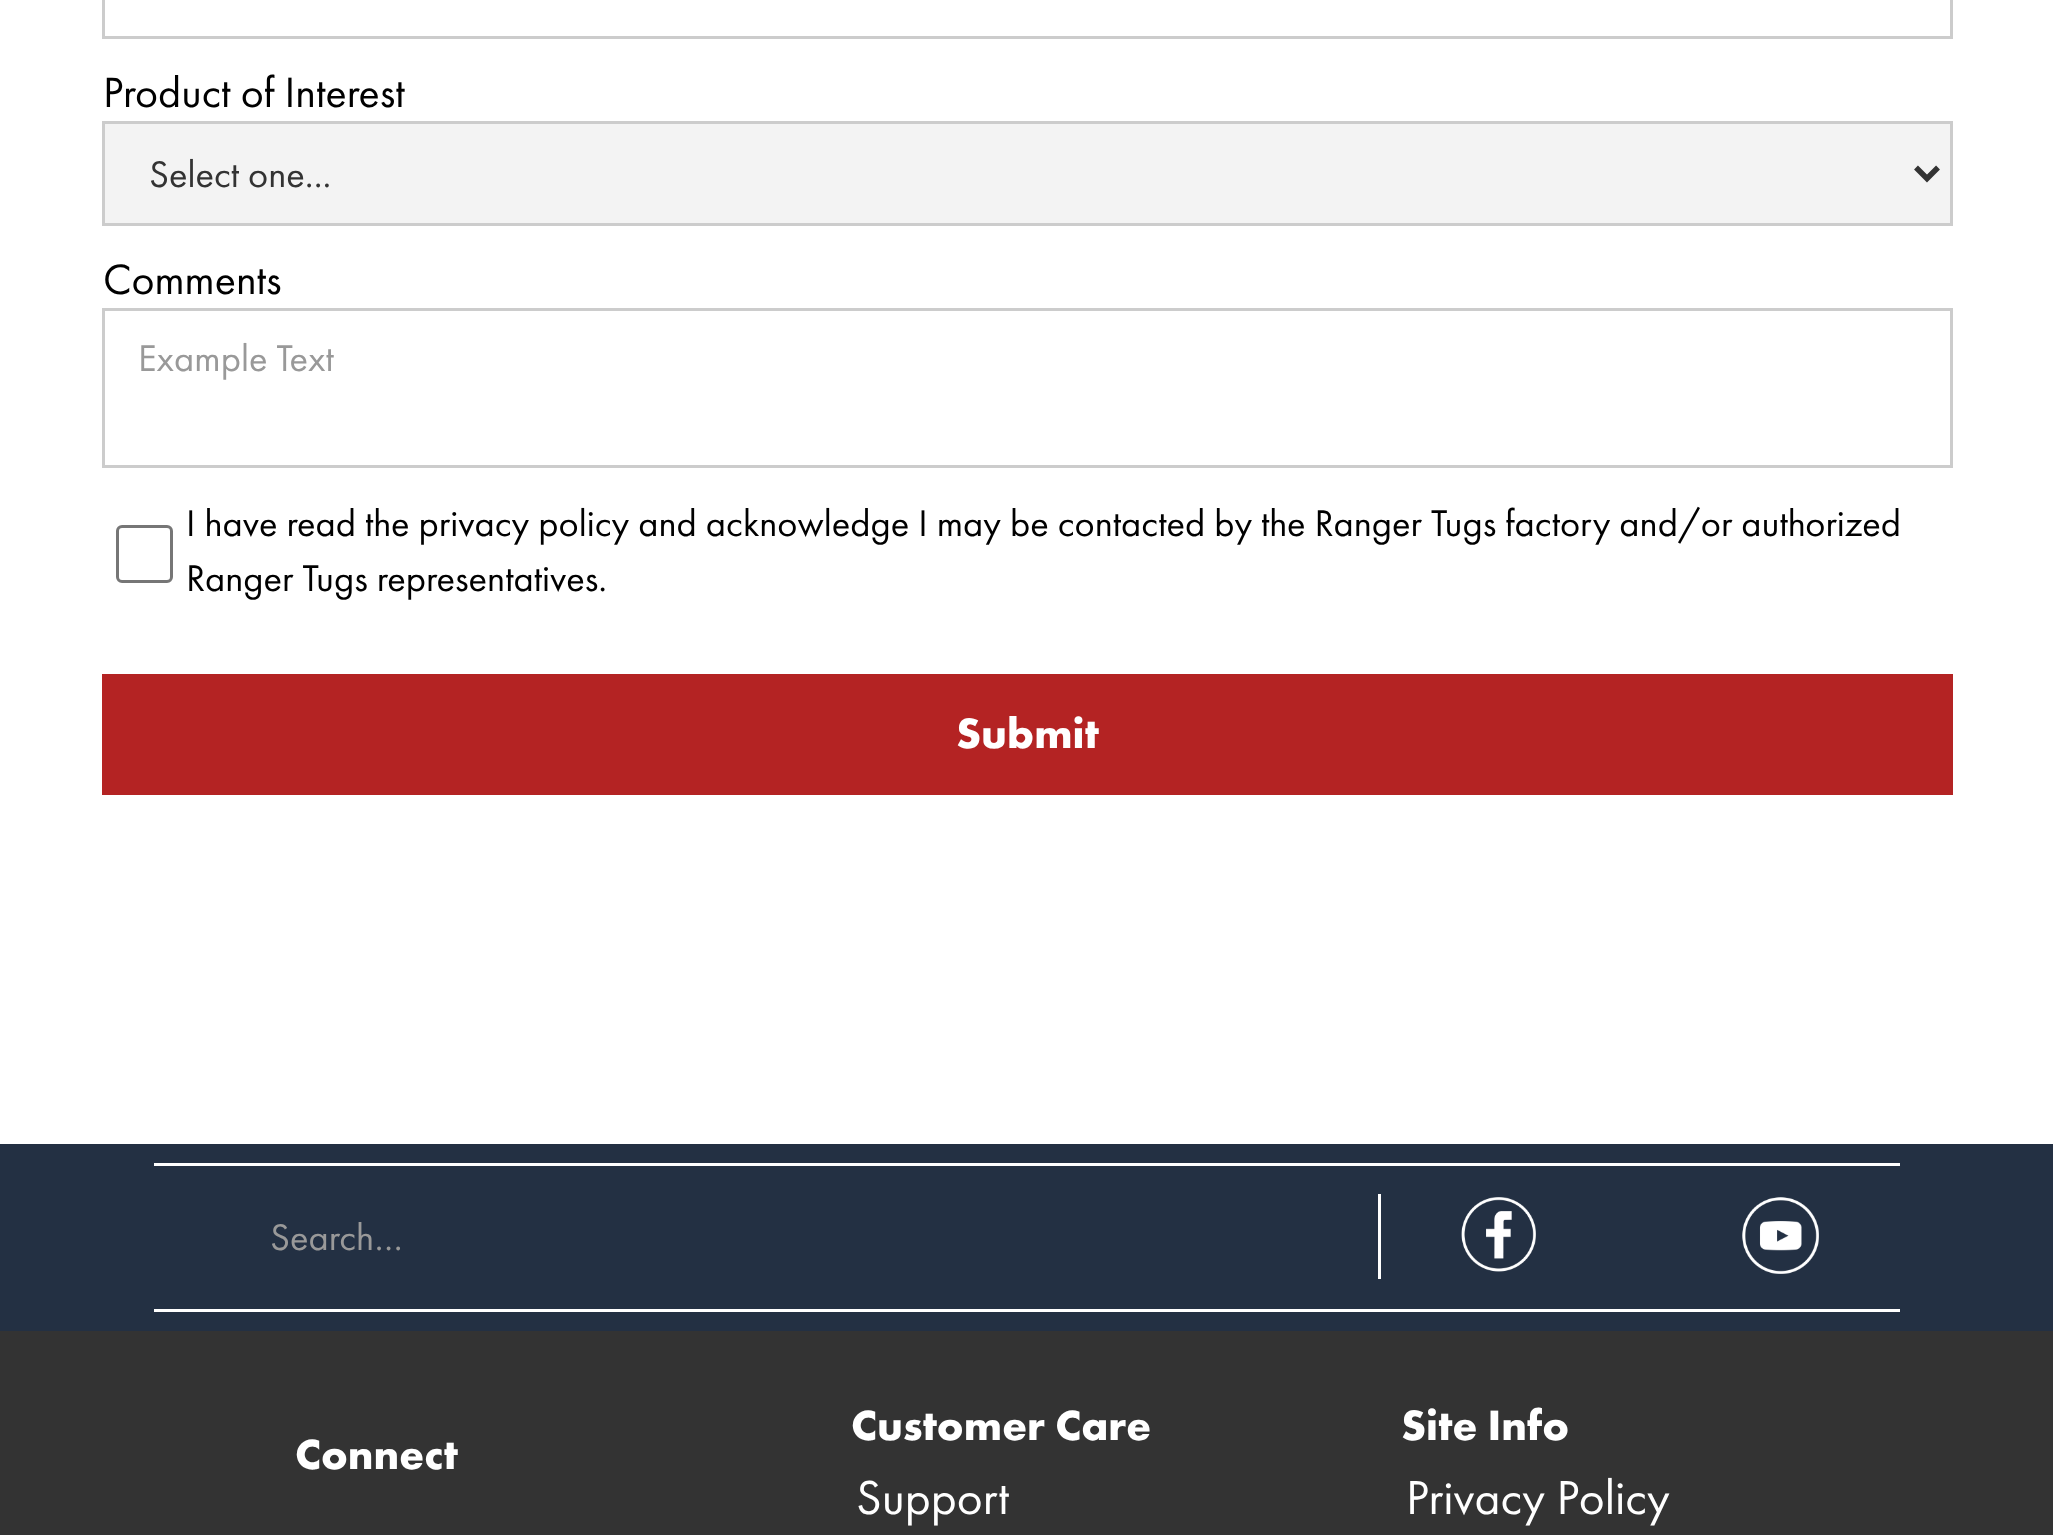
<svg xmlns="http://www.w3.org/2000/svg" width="2053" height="1535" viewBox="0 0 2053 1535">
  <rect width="100%" height="100%" fill="rgb(255,255,255)"/>
  <rect x="103.5" y="-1.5" width="1848" height="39" fill="none" stroke="rgb(204,204,204)" stroke-width="3"/>
  <text x="103" y="107" font-family="Futura PT" font-size="44" fill="rgb(0,0,0)">Product of Interest</text>
  <rect x="103.5" y="122.5" width="1848" height="102" fill="rgb(243,243,243)" stroke="rgb(204,204,204)" stroke-width="3"/>
  <path d="M1916 167.5L1927 178.5L1938 167.5" fill="none" stroke="rgb(51,51,51)" stroke-width="5.5"/>
  <text x="149" y="187" font-family="Futura PT" font-size="38.5" fill="rgb(51,51,51)">Select one...</text>
  <text x="103" y="294" font-family="Futura PT" font-size="44" fill="rgb(0,0,0)">Comments</text>
  <rect x="103.5" y="309.5" width="1848" height="157" fill="none" stroke="rgb(204,204,204)" stroke-width="3"/>
  <text x="138" y="371" font-family="Futura PT" font-size="38.5" fill="rgb(153,153,153)">Example Text</text>
  <rect x="117.5" y="526.5" width="54" height="55" rx="4.5" fill="none" stroke="rgb(118,118,118)" stroke-width="3"/>
  <g font-family="Futura PT" font-size="38.5" fill="rgb(0,0,0)">
    <text>
      <tspan x="186" y="536">I have read the privacy policy and acknowledge I may be contacted by the Ranger Tugs factory and/or authorized</tspan>
      <tspan x="186" y="591">Ranger Tugs representatives.</tspan>
    </text>
  </g>
  <rect x="102" y="674" width="1851" height="121" fill="rgb(180,35,35)"/>
  <text x="956" y="748" font-family="Futura PT" font-size="44" font-weight="bold" fill="rgb(255,255,255)">Submit</text>
  <rect x="0" y="1144" width="2053" height="187" fill="rgb(35,48,67)"/>
  <rect x="154" y="1163" width="1746" height="3" fill="rgb(255,255,255)"/>
  <rect x="154" y="1309" width="1746" height="3" fill="rgb(255,255,255)"/>
  <text x="270" y="1250" font-family="Futura PT" font-size="38.5" fill="rgb(153,153,153)">Search…</text>
  <rect x="1378" y="1194" width="3" height="85" fill="rgb(255,255,255)"/>
  <image x="1461" y="1197" width="75" height="75" href="pic1.png"/>
  <image x="1742" y="1197" width="77" height="77" href="pic2.png"/>
  <rect x="0" y="1331" width="2053" height="204" fill="rgb(51,51,51)"/>
  <g font-family="Futura PT" font-size="44" font-weight="bold" fill="rgb(255,255,255)">
    <text x="295" y="1469">Connect</text>
    <text x="851" y="1440">Customer Care</text>
  </g>
  <text x="856" y="1514" font-family="Futura PT" font-size="49.5" fill="rgb(255,255,255)">Support</text>
  <text x="1401" y="1440" font-family="Futura PT" font-size="44" font-weight="bold" fill="rgb(255,255,255)">Site Info</text>
  <text x="1406" y="1514" font-family="Futura PT" font-size="49.5" fill="rgb(255,255,255)">Privacy Policy</text>
</svg>
